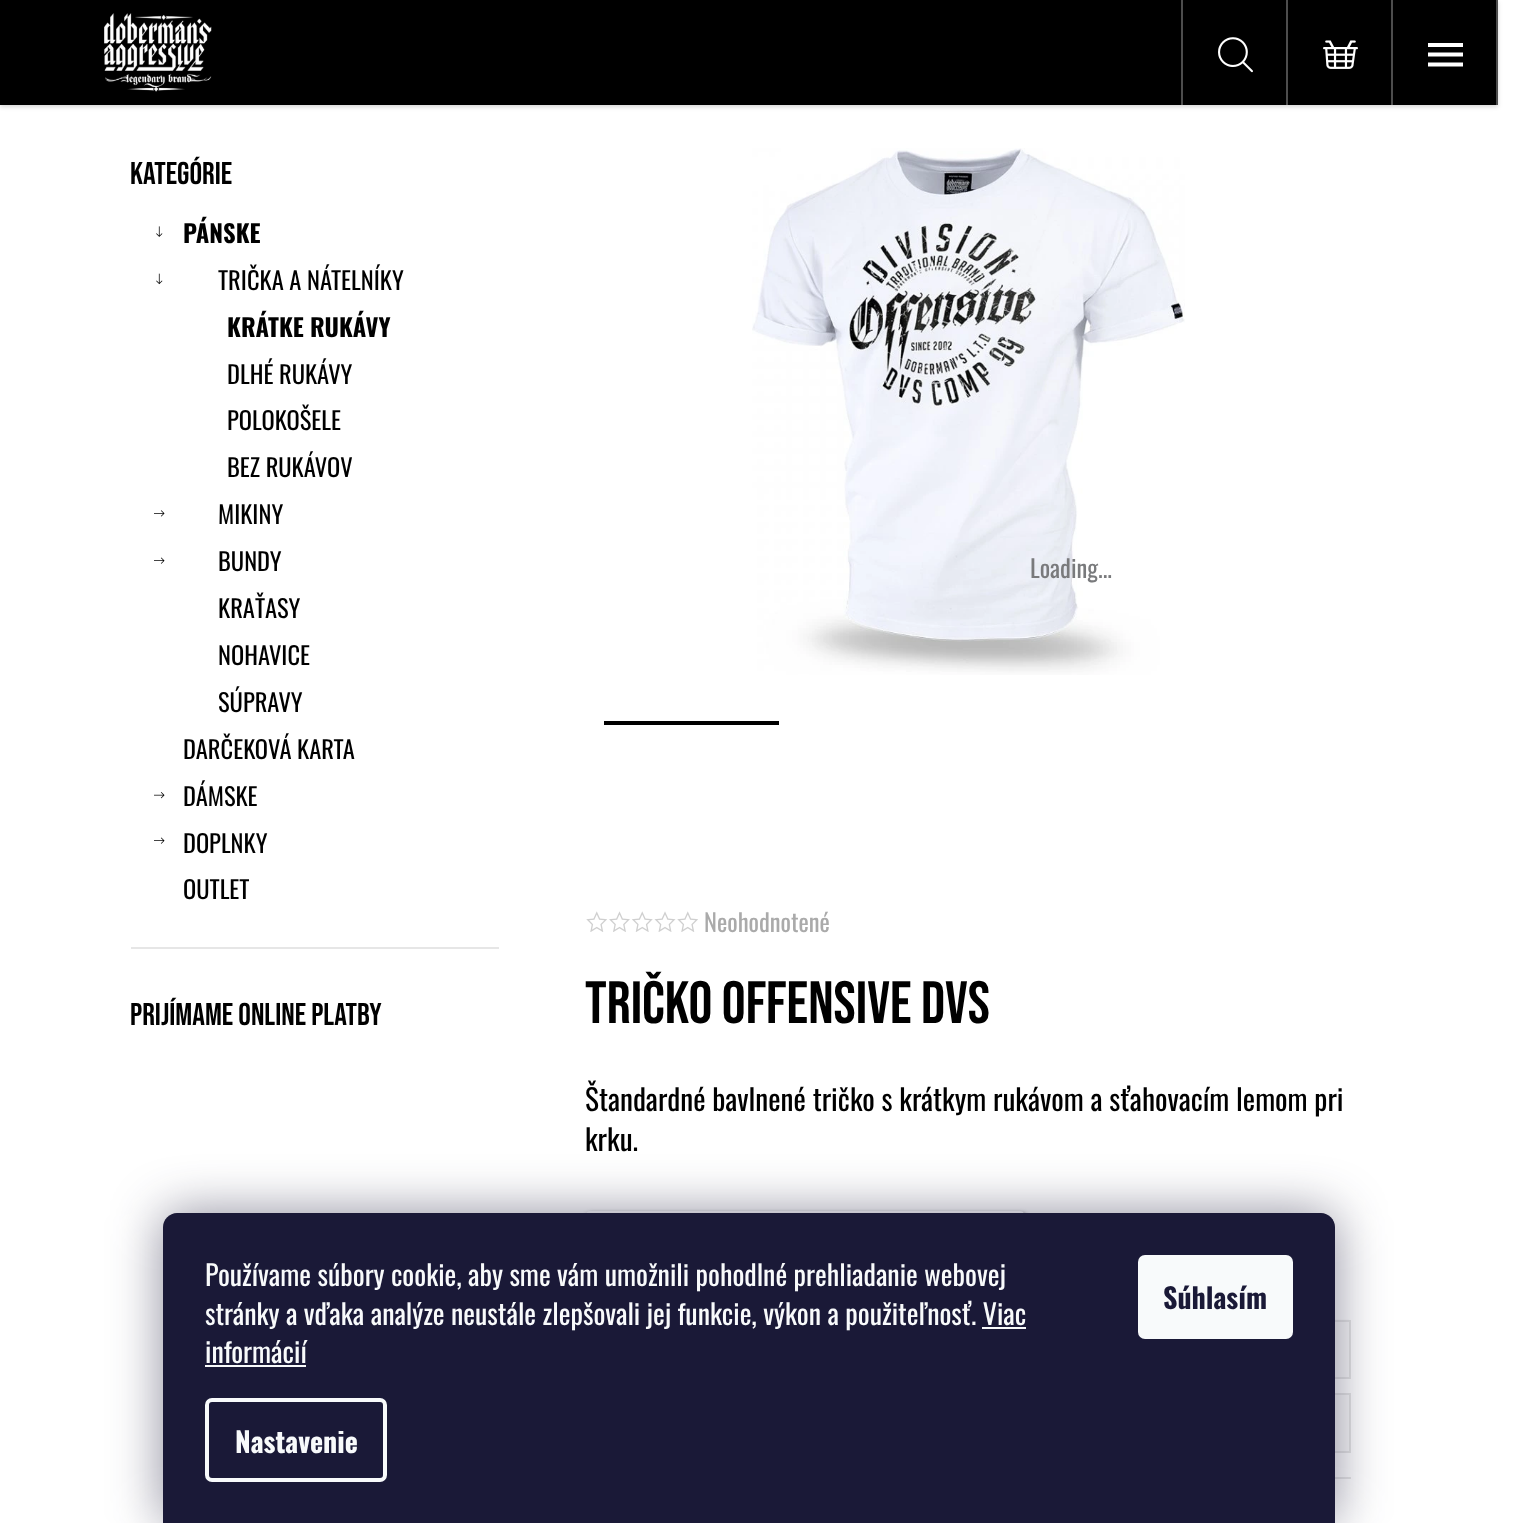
<svg xmlns="http://www.w3.org/2000/svg" width="1523" height="1523" viewBox="0 0 1523 1523">
  <rect width="100%" height="100%" fill="rgb(255,255,255)"/>
  <rect x="0" y="2" width="1498" height="105" fill="rgba(0,0,0,0.16)" filter="blur(2px)"/>
  <rect x="0" y="0" width="1496" height="105" fill="rgb(0,0,0)"/>
  <image x="104" y="13" width="108" height="79" href="pic1.png"/>
  <rect x="1496" y="0" width="2" height="105" fill="rgb(77,77,77)"/>
  <rect x="1181" y="0" width="2" height="105" fill="rgb(77,77,77)"/>
  <image x="1218" y="37" width="35" height="36" href="pic2.png"/>
  <rect x="1286" y="0" width="2" height="105" fill="rgb(77,77,77)"/>
  <image x="1323" y="40" width="35" height="29" href="pic3.png"/>
  <rect x="1391" y="0" width="2" height="105" fill="rgb(77,77,77)"/>
  <path d="M1428 66.5H1463V62.5H1428ZM1428 56.5H1463V52.5H1428ZM1428 43V47H1463V43Z" fill="rgb(255,255,255)"/>
  <text x="130" y="184" font-family="Bebas Neue" font-size="31.5" fill="rgb(0,0,0)">Kategórie</text>
  <image x="156" y="226" width="7" height="11" href="pic4.png"/>
  <text x="183" y="243" font-family="Oswald" font-size="24.5" font-weight="bold" fill="rgb(0,0,0)">PÁNSKE</text>
  <image x="156" y="273" width="7" height="12" href="pic5.png"/>
  <text x="218" y="290" font-family="Oswald" font-size="24.5" fill="rgb(0,0,0)">TRIČKA A NÁTELNÍKY</text>
  <text x="227" y="337" font-family="Oswald" font-size="24.5" font-weight="bold" fill="rgb(0,0,0)">KRÁTKE RUKÁVY</text>
  <g font-family="Oswald" font-size="24.5" fill="rgb(0,0,0)">
    <text>
      <tspan x="227" y="384">DLHÉ RUKÁVY</tspan>
      <tspan x="227" y="430">POLOKOŠELE</tspan>
      <tspan x="227" y="477">BEZ RUKÁVOV</tspan>
    </text>
  </g>
  <image x="154" y="510" width="11" height="7" href="pic6.png"/>
  <text x="218" y="524" font-family="Oswald" font-size="24.5" fill="rgb(0,0,0)">MIKINY</text>
  <image x="154" y="557" width="11" height="7" href="pic7.png"/>
  <g font-family="Oswald" font-size="24.5" fill="rgb(0,0,0)">
    <text>
      <tspan x="218" y="571">BUNDY</tspan>
      <tspan x="218" y="618">KRAŤASY</tspan>
      <tspan x="218" y="665">NOHAVICE</tspan>
      <tspan x="218" y="712">SÚPRAVY</tspan>
    </text>
    <text x="183" y="759">DARČEKOVÁ KARTA</text>
  </g>
  <image x="154" y="792" width="11" height="7" href="pic8.png"/>
  <text x="183" y="806" font-family="Oswald" font-size="24.5" fill="rgb(0,0,0)">DÁMSKE</text>
  <image x="154" y="837" width="11" height="7" href="pic7.png"/>
  <g font-family="Oswald" font-size="24.5" fill="rgb(0,0,0)">
    <text>
      <tspan x="183" y="853">DOPLNKY</tspan>
      <tspan x="183" y="899">OUTLET</tspan>
    </text>
  </g>
  <rect x="131" y="947" width="368" height="2" fill="rgb(230,230,230)"/>
  <text x="130" y="1025" font-family="Bebas Neue" font-size="31.5" fill="rgb(0,0,0)">Prijímame online platby</text>
  <image x="752" y="148" width="433" height="527" href="pic9.png"/>
  <text x="1030" y="578" font-family="Oswald" font-size="24.5" fill="rgb(121,122,124)">Loading...</text>
  <rect x="604" y="721" width="175" height="4" fill="rgb(0,0,0)"/>
  <image x="586" y="911" width="21" height="21" href="pic10.png"/>
  <image x="609" y="911" width="21" height="21" href="pic11.png"/>
  <image x="632" y="911" width="21" height="21" href="pic12.png"/>
  <image x="654" y="911" width="22" height="21" href="pic13.png"/>
  <image x="677" y="911" width="21" height="21" href="pic10.png"/>
  <text x="704" y="932" font-family="Oswald" font-size="24.5" fill="rgb(170,170,170)">Neohodnotené</text>
  <text x="585" y="1023" font-family="Bebas Neue" font-size="59.5" fill="rgb(0,0,0)">TRIČKO OFFENSIVE DVS</text>
  <g font-family="Oswald" font-size="29.4" fill="rgb(0,0,0)">
    <text>
      <tspan x="585" y="1111">Štandardné bavlnené tričko s krátkym rukávom a sťahovacím lemom pri</tspan>
      <tspan x="585" y="1151">krku.</tspan>
    </text>
  </g>
  <rect x="586" y="1213" width="441" height="52" rx="5" fill="rgb(128,128,128)" filter="blur(2px)"/>
  <rect x="586" y="1211" width="438" height="49" rx="4" fill="rgb(255,255,255)"/>
  <image x="1335" y="1319" width="14" height="58" href="pic14.png"/>
  <rect x="920" y="1321" width="430" height="57" fill="none" stroke="rgb(230,230,230)" stroke-width="2"/>
  <image x="1335" y="1395" width="14" height="56" href="pic15.png"/>
  <rect x="920" y="1394" width="430" height="58" fill="none" stroke="rgb(230,230,230)" stroke-width="2"/>
  <rect x="1335" y="1477" width="16" height="2" fill="rgb(231,231,231)"/>
  <rect x="163" y="1213" width="1172" height="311" rx="14" fill="rgba(27,25,57,0.5)" filter="blur(26px)"/>
  <path d="M177 1213H1321C1328.5 1213 1335 1219.5 1335 1227V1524H163V1227C163 1219.5 169.5 1213 177 1213Z" fill="rgb(26,25,55)"/>
  <g font-family="Oswald" font-size="28" fill="rgb(248,250,251)">
    <text>
      <tspan x="205" y="1286">Používame súbory cookie, aby sme vám umožnili pohodlné prehliadanie webovej</tspan>
      <tspan x="205" y="1325">stránky a vďaka analýze neustále zlepšovali jej funkcie, výkon a použiteľnosť. Viac</tspan>
      <tspan x="205" y="1363">informácií</tspan>
    </text>
  </g>
  <rect x="982" y="1327" width="44" height="2" fill="rgb(248,250,251)"/>
  <rect x="205" y="1365" width="101" height="2" fill="rgb(248,250,251)"/>
  <rect x="207" y="1400" width="178" height="80" rx="5" fill="none" stroke="rgb(248,250,251)" stroke-width="4"/>
  <text x="235" y="1453" font-family="Oswald" font-size="28" font-weight="bold" fill="rgb(248,250,251)">Nastavenie</text>
  <rect x="1138" y="1255" width="155" height="84" rx="7" fill="rgb(248,250,251)"/>
  <text x="1163" y="1309" font-family="Oswald" font-size="28" font-weight="bold" fill="rgb(26,25,55)">Súhlasím</text>
</svg>
